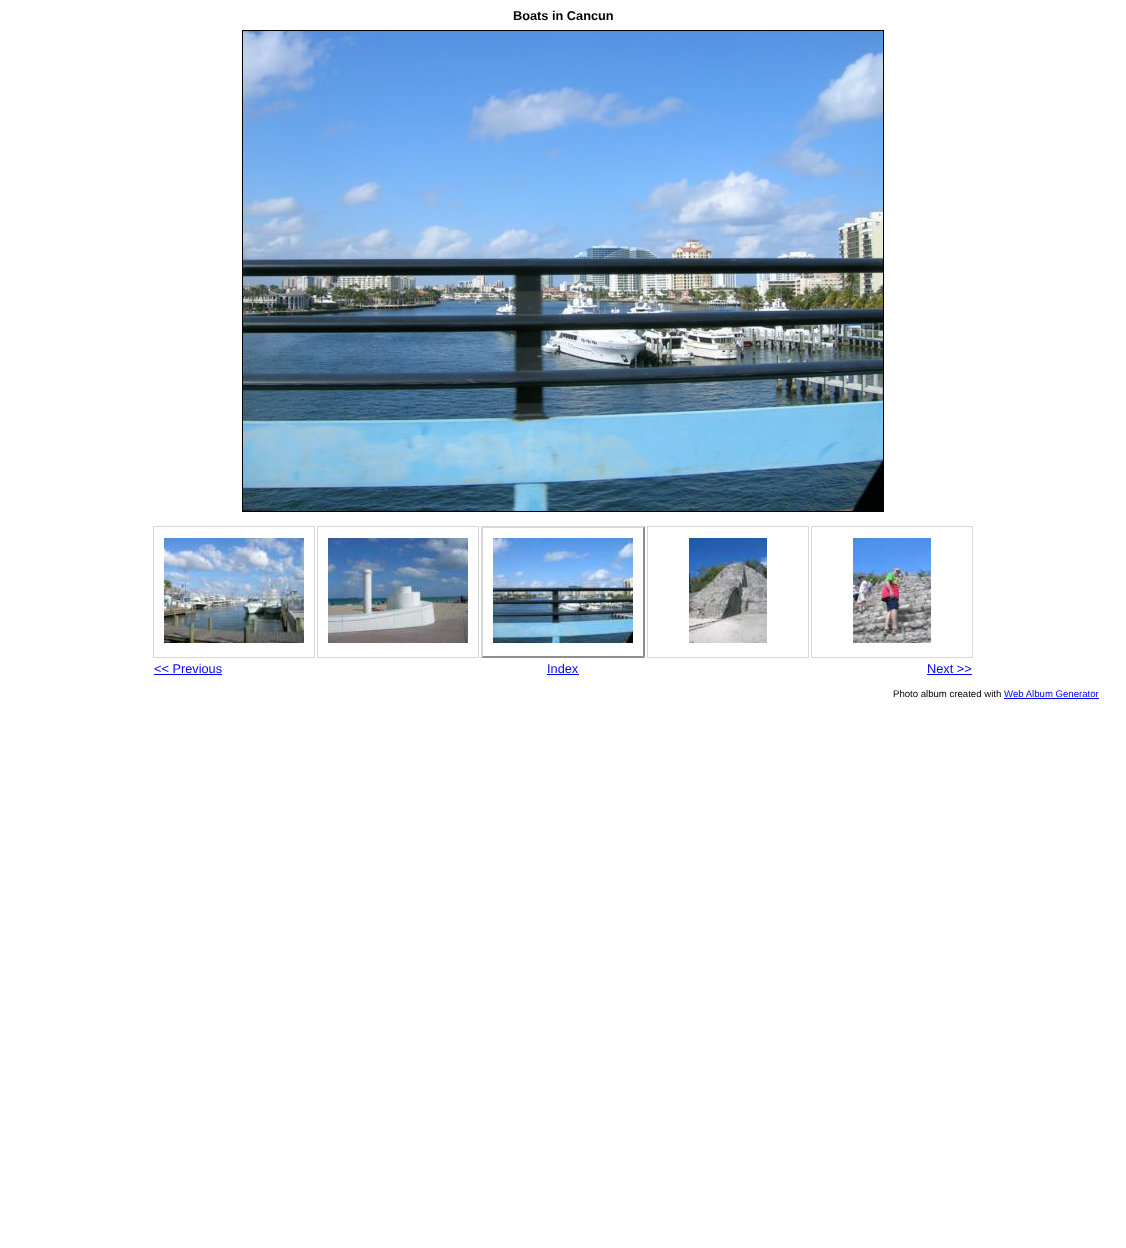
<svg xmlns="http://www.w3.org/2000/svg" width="1126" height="1248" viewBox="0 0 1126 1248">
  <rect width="100%" height="100%" fill="rgb(255,255,255)"/>
  <text x="513" y="20" font-family="Liberation Sans" font-size="12.75" font-weight="bold" fill="rgb(0,0,0)">Boats in Cancun</text>
  <rect x="242.5" y="30.5" width="641" height="481" fill="none" stroke="rgb(0,0,0)"/>
  <image x="243" y="31" width="640" height="480" href="pic1.png"/>
  <rect x="153.5" y="526.5" width="161" height="131" fill="none" stroke="rgb(215,215,215)"/>
  <image x="164" y="538" width="140" height="105" href="pic2.png"/>
  <rect x="317.5" y="526.5" width="161" height="131" fill="none" stroke="rgb(215,215,215)"/>
  <image x="328" y="538" width="140" height="105" href="pic3.png"/>
  <path d="M481 526H645L643 528H483Z" fill="rgb(215,215,215)"/>
  <path d="M645 526V658L643 656V528Z" fill="rgb(143,143,143)"/>
  <path d="M645 658H481L483 656H643Z" fill="rgb(143,143,143)"/>
  <path d="M481 658V526L483 528V656Z" fill="rgb(215,215,215)"/>
  <image x="493" y="538" width="140" height="105" href="pic4.png"/>
  <rect x="647.5" y="526.5" width="161" height="131" fill="none" stroke="rgb(215,215,215)"/>
  <image x="689" y="538" width="78" height="105" href="pic5.png"/>
  <rect x="811.5" y="526.5" width="161" height="131" fill="none" stroke="rgb(215,215,215)"/>
  <image x="853" y="538" width="78" height="105" href="pic6.png"/>
  <text x="154" y="673" font-family="Liberation Sans" font-size="12.75" fill="rgb(0,0,255)">&lt;&lt; Previous</text>
  <rect x="154" y="674" width="68" height="1" fill="rgb(0,0,255)"/>
  <text x="547" y="673" font-family="Liberation Sans" font-size="12.75" fill="rgb(0,0,255)">Index</text>
  <rect x="547" y="674" width="32" height="1" fill="rgb(0,0,255)"/>
  <text x="927" y="673" font-family="Liberation Sans" font-size="12.75" fill="rgb(0,0,255)">Next &gt;&gt;</text>
  <rect x="927" y="674" width="45" height="1" fill="rgb(0,0,255)"/>
  <text x="893" y="697" font-family="Liberation Sans" font-size="9.6" fill="rgb(0,0,0)">Photo album created with</text>
  <text x="1004" y="697" font-family="Liberation Sans" font-size="9.6" fill="rgb(0,0,255)">Web Album Generator</text>
  <rect x="1004" y="698" width="95" height="1" fill="rgb(0,0,255)"/>
</svg>
